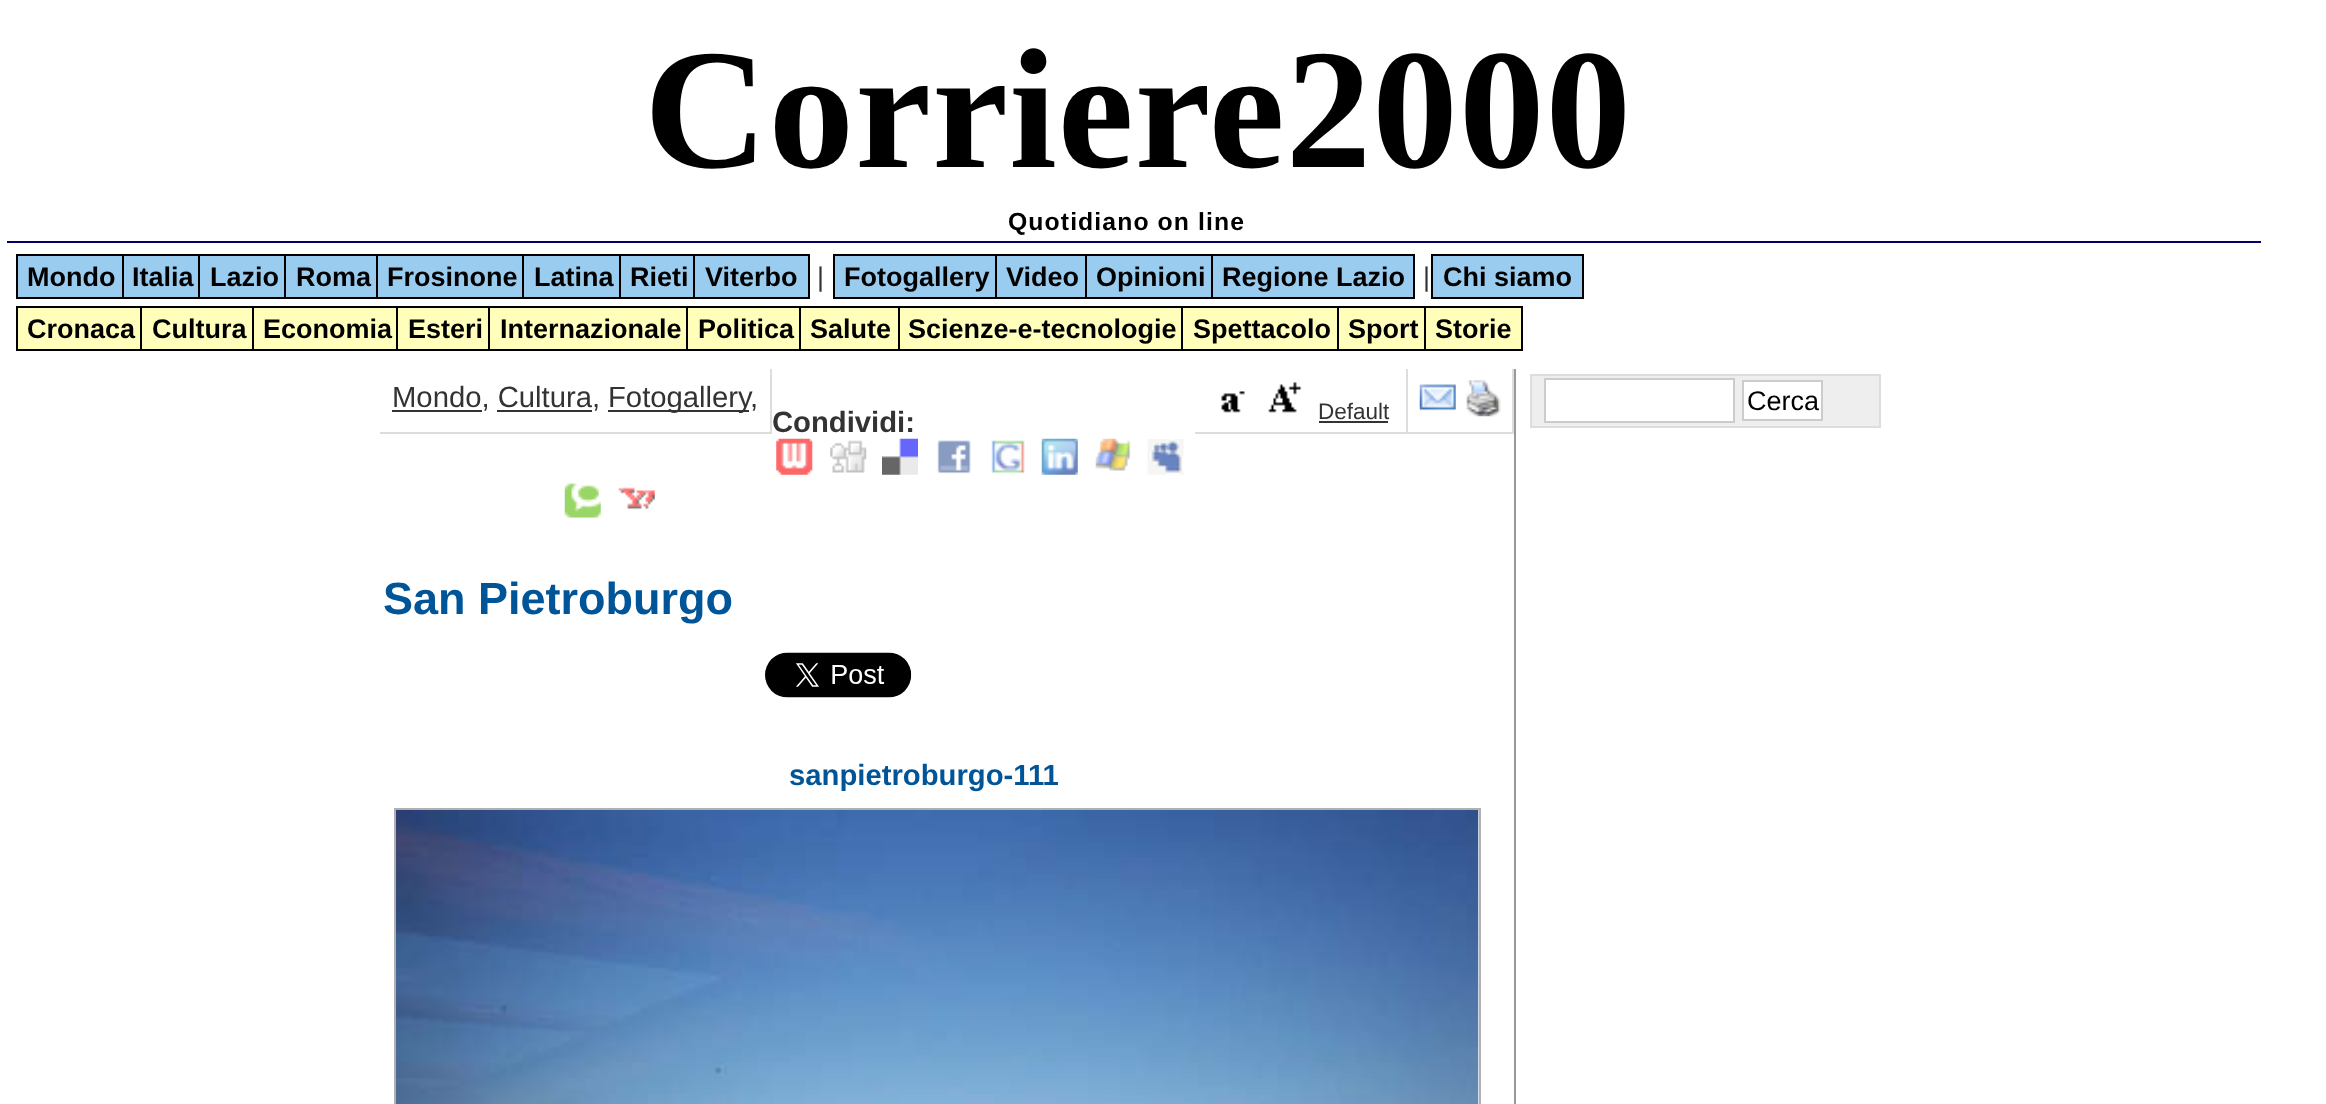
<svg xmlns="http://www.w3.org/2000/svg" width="2326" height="1104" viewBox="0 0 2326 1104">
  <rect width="100%" height="100%" fill="rgb(255,255,255)"/>
  <rect x="7" y="241" width="2254" height="2" fill="rgb(0,0,102)"/>
  <text x="644" y="167" font-family="Liberation Serif" font-size="171" font-weight="bold" letter-spacing="1.1" fill="rgb(0,0,0)">Corriere2000</text>
  <text x="1008" y="230" font-family="Liberation Sans" font-size="24.75" font-weight="bold" letter-spacing="1.1" fill="rgb(0,0,0)">Quotidiano on line</text>
  <rect x="18" y="256" width="104" height="41" fill="rgb(153,204,238)"/>
  <rect x="17" y="255" width="108" height="43" fill="none" stroke="rgb(0,0,0)" stroke-width="2"/>
  <text x="27" y="286" font-family="Liberation Sans" font-size="27" font-weight="bold" fill="rgb(0,0,0)">Mondo</text>
  <rect x="124" y="256" width="74" height="41" fill="rgb(153,204,238)"/>
  <rect x="123" y="255" width="81" height="43" fill="none" stroke="rgb(0,0,0)" stroke-width="2"/>
  <text x="132" y="286" font-family="Liberation Sans" font-size="27" font-weight="bold" fill="rgb(0,0,0)">Italia</text>
  <rect x="200" y="256" width="84" height="41" fill="rgb(153,204,238)"/>
  <rect x="199" y="255" width="90" height="43" fill="none" stroke="rgb(0,0,0)" stroke-width="2"/>
  <text x="210" y="286" font-family="Liberation Sans" font-size="27" font-weight="bold" fill="rgb(0,0,0)">Lazio</text>
  <rect x="286" y="256" width="90" height="41" fill="rgb(153,204,238)"/>
  <rect x="285" y="255" width="97" height="43" fill="none" stroke="rgb(0,0,0)" stroke-width="2"/>
  <text x="296" y="286" font-family="Liberation Sans" font-size="27" font-weight="bold" fill="rgb(0,0,0)">Roma</text>
  <rect x="378" y="256" width="144" height="41" fill="rgb(153,204,238)"/>
  <rect x="377" y="255" width="151" height="43" fill="none" stroke="rgb(0,0,0)" stroke-width="2"/>
  <text x="387" y="286" font-family="Liberation Sans" font-size="27" font-weight="bold" fill="rgb(0,0,0)">Frosinone</text>
  <rect x="524" y="256" width="95" height="41" fill="rgb(153,204,238)"/>
  <rect x="523" y="255" width="102" height="43" fill="none" stroke="rgb(0,0,0)" stroke-width="2"/>
  <text x="534" y="286" font-family="Liberation Sans" font-size="27" font-weight="bold" fill="rgb(0,0,0)">Latina</text>
  <rect x="621" y="256" width="72" height="41" fill="rgb(153,204,238)"/>
  <rect x="620" y="255" width="79" height="43" fill="none" stroke="rgb(0,0,0)" stroke-width="2"/>
  <text x="630" y="286" font-family="Liberation Sans" font-size="27" font-weight="bold" fill="rgb(0,0,0)">Rieti</text>
  <rect x="694" y="255" width="115" height="43" fill="rgb(153,204,238)" stroke="rgb(0,0,0)" stroke-width="2"/>
  <text x="705" y="286" font-family="Liberation Sans" font-size="27" font-weight="bold" fill="rgb(0,0,0)">Viterbo</text>
  <text x="817" y="286" font-family="Liberation Sans" font-size="27" fill="rgb(51,51,51)">|</text>
  <rect x="835" y="256" width="160" height="41" fill="rgb(153,204,238)"/>
  <rect x="834" y="255" width="166" height="43" fill="none" stroke="rgb(0,0,0)" stroke-width="2"/>
  <text x="844" y="286" font-family="Liberation Sans" font-size="27" font-weight="bold" fill="rgb(0,0,0)">Fotogallery</text>
  <rect x="997" y="256" width="88" height="41" fill="rgb(153,204,238)"/>
  <rect x="996" y="255" width="94" height="43" fill="none" stroke="rgb(0,0,0)" stroke-width="2"/>
  <text x="1006" y="286" font-family="Liberation Sans" font-size="27" font-weight="bold" fill="rgb(0,0,0)">Video</text>
  <rect x="1087" y="256" width="124" height="41" fill="rgb(153,204,238)"/>
  <rect x="1086" y="255" width="130" height="43" fill="none" stroke="rgb(0,0,0)" stroke-width="2"/>
  <text x="1096" y="286" font-family="Liberation Sans" font-size="27" font-weight="bold" fill="rgb(0,0,0)">Opinioni</text>
  <rect x="1212" y="255" width="202" height="43" fill="rgb(153,204,238)" stroke="rgb(0,0,0)" stroke-width="2"/>
  <text x="1222" y="286" font-family="Liberation Sans" font-size="27" font-weight="bold" fill="rgb(0,0,0)">Regione Lazio</text>
  <text x="1423" y="286" font-family="Liberation Sans" font-size="27" fill="rgb(51,51,51)">|</text>
  <rect x="1432" y="255" width="151" height="43" fill="rgb(153,204,238)" stroke="rgb(0,0,0)" stroke-width="2"/>
  <text x="1443" y="286" font-family="Liberation Sans" font-size="27" font-weight="bold" fill="rgb(0,0,0)">Chi siamo</text>
  <rect x="18" y="308" width="122" height="41" fill="rgb(255,255,187)"/>
  <rect x="17" y="307" width="128" height="43" fill="none" stroke="rgb(0,0,0)" stroke-width="2"/>
  <text x="27" y="338" font-family="Liberation Sans" font-size="27" font-weight="bold" fill="rgb(0,0,0)">Cronaca</text>
  <rect x="142" y="308" width="110" height="41" fill="rgb(255,255,187)"/>
  <rect x="141" y="307" width="115" height="43" fill="none" stroke="rgb(0,0,0)" stroke-width="2"/>
  <text x="152" y="338" font-family="Liberation Sans" font-size="27" font-weight="bold" fill="rgb(0,0,0)">Cultura</text>
  <rect x="254" y="308" width="142" height="41" fill="rgb(255,255,187)"/>
  <rect x="253" y="307" width="149" height="43" fill="none" stroke="rgb(0,0,0)" stroke-width="2"/>
  <text x="263" y="338" font-family="Liberation Sans" font-size="27" font-weight="bold" fill="rgb(0,0,0)">Economia</text>
  <rect x="398" y="308" width="90" height="41" fill="rgb(255,255,187)"/>
  <rect x="397" y="307" width="97" height="43" fill="none" stroke="rgb(0,0,0)" stroke-width="2"/>
  <text x="408" y="338" font-family="Liberation Sans" font-size="27" font-weight="bold" fill="rgb(0,0,0)">Esteri</text>
  <rect x="490" y="308" width="196" height="41" fill="rgb(255,255,187)"/>
  <rect x="489" y="307" width="203" height="43" fill="none" stroke="rgb(0,0,0)" stroke-width="2"/>
  <text x="500" y="338" font-family="Liberation Sans" font-size="27" font-weight="bold" fill="rgb(0,0,0)">Internazionale</text>
  <rect x="688" y="308" width="111" height="41" fill="rgb(255,255,187)"/>
  <rect x="687" y="307" width="118" height="43" fill="none" stroke="rgb(0,0,0)" stroke-width="2"/>
  <text x="698" y="338" font-family="Liberation Sans" font-size="27" font-weight="bold" fill="rgb(0,0,0)">Politica</text>
  <rect x="801" y="308" width="97" height="41" fill="rgb(255,255,187)"/>
  <rect x="800" y="307" width="101" height="43" fill="none" stroke="rgb(0,0,0)" stroke-width="2"/>
  <text x="810" y="338" font-family="Liberation Sans" font-size="27" font-weight="bold" fill="rgb(0,0,0)">Salute</text>
  <rect x="900" y="308" width="281" height="41" fill="rgb(255,255,187)"/>
  <rect x="899" y="307" width="288" height="43" fill="none" stroke="rgb(0,0,0)" stroke-width="2"/>
  <text x="908" y="338" font-family="Liberation Sans" font-size="27" font-weight="bold" fill="rgb(0,0,0)">Scienze-e-tecnologie</text>
  <rect x="1183" y="308" width="154" height="41" fill="rgb(255,255,187)"/>
  <rect x="1182" y="307" width="160" height="43" fill="none" stroke="rgb(0,0,0)" stroke-width="2"/>
  <text x="1193" y="338" font-family="Liberation Sans" font-size="27" font-weight="bold" fill="rgb(0,0,0)">Spettacolo</text>
  <rect x="1339" y="308" width="85" height="41" fill="rgb(255,255,187)"/>
  <rect x="1338" y="307" width="90" height="43" fill="none" stroke="rgb(0,0,0)" stroke-width="2"/>
  <text x="1348" y="338" font-family="Liberation Sans" font-size="27" font-weight="bold" fill="rgb(0,0,0)">Sport</text>
  <rect x="1425" y="307" width="97" height="43" fill="rgb(255,255,187)" stroke="rgb(0,0,0)" stroke-width="2"/>
  <text x="1435" y="338" font-family="Liberation Sans" font-size="27" font-weight="bold" fill="rgb(0,0,0)">Storie</text>
  <rect x="770" y="369" width="2" height="65" fill="rgb(221,221,221)"/>
  <rect x="380" y="432" width="392" height="2" fill="rgb(221,221,221)"/>
  <rect x="392" y="410" width="90" height="2" fill="rgb(51,51,51)"/>
  <text x="392" y="407" font-family="Liberation Sans" font-size="29.25" fill="rgb(51,51,51)">Mondo, Cultura,</text>
  <rect x="608" y="410" width="141" height="2" fill="rgb(51,51,51)"/>
  <g font-family="Liberation Sans" font-size="29.25" fill="rgb(51,51,51)">
    <text x="608" y="407">Fotogallery</text>
    <text x="750" y="407">,</text>
  </g>
  <rect x="497" y="410" width="95" height="2" fill="rgb(51,51,51)"/>
  <text x="772" y="432" font-family="Liberation Sans" font-size="29.25" font-weight="bold" fill="rgb(51,51,51)">Condividi:</text>
  <image x="776" y="438" width="37" height="37" href="pic1.png"/>
  <image x="830" y="440" width="37" height="33" href="pic2.png"/>
  <image x="882" y="438" width="36" height="37" href="pic3.png"/>
  <image x="937" y="440" width="34" height="34" href="pic4.png"/>
  <image x="991" y="440" width="34" height="34" href="pic5.png"/>
  <image x="1041" y="438" width="37" height="37" href="pic6.png"/>
  <image x="1095" y="438" width="36" height="33" href="pic7.png"/>
  <image x="1147" y="439" width="37" height="36" href="pic8.png"/>
  <image x="564" y="483" width="37" height="35" href="pic9.png"/>
  <image x="618" y="487" width="37" height="23" href="pic10.png"/>
  <rect x="1406" y="369" width="2" height="65" fill="rgb(221,221,221)"/>
  <rect x="1195" y="432" width="214" height="2" fill="rgb(221,221,221)"/>
  <image x="1221" y="391" width="24" height="22" href="pic11.png"/>
  <image x="1268" y="382" width="34" height="31" href="pic12.png"/>
  <text x="1318" y="419" font-family="Liberation Sans" font-size="22.5" fill="rgb(51,51,51)">Default</text>
  <rect x="1319" y="421" width="69" height="2" fill="rgb(51,51,51)"/>
  <rect x="1512" y="369" width="2" height="65" fill="rgb(221,221,221)"/>
  <rect x="1409" y="432" width="105" height="2" fill="rgb(221,221,221)"/>
  <image x="1419" y="384" width="37" height="27" href="pic13.png"/>
  <image x="1466" y="380" width="35" height="37" href="pic14.png"/>
  <text x="383" y="614" font-family="Liberation Sans" font-size="45" font-weight="bold" fill="rgb(0,85,153)">San Pietroburgo</text>
  <image x="765" y="652" width="147" height="46" href="pic15.png"/>
  <text x="789" y="785" font-family="Liberation Sans" font-size="29.25" font-weight="bold" fill="rgb(0,85,153)">sanpietroburgo-111</text>
  <rect x="1478" y="810" width="1" height="294" fill="rgb(250,251,252)"/>
  <rect x="395" y="809" width="1085" height="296" fill="none" stroke="rgb(176,176,176)" stroke-width="2"/>
  <image x="396" y="810" width="1083" height="294" href="pic16.png"/>
  <rect x="1514" y="369" width="2" height="735" fill="rgb(153,153,153)"/>
  <rect x="1531" y="375" width="349" height="52" fill="rgb(238,238,238)" stroke="rgb(221,221,221)" stroke-width="2"/>
  <rect x="1545" y="379" width="189" height="43" fill="rgb(255,255,255)" stroke="rgb(204,204,204)" stroke-width="2"/>
  <rect x="1743" y="381" width="79" height="39" fill="rgb(255,255,255)" stroke="rgb(204,204,204)" stroke-width="2"/>
  <text x="1747" y="410" font-family="Liberation Sans" font-size="27" fill="rgb(0,0,0)">Cerca</text>
</svg>
